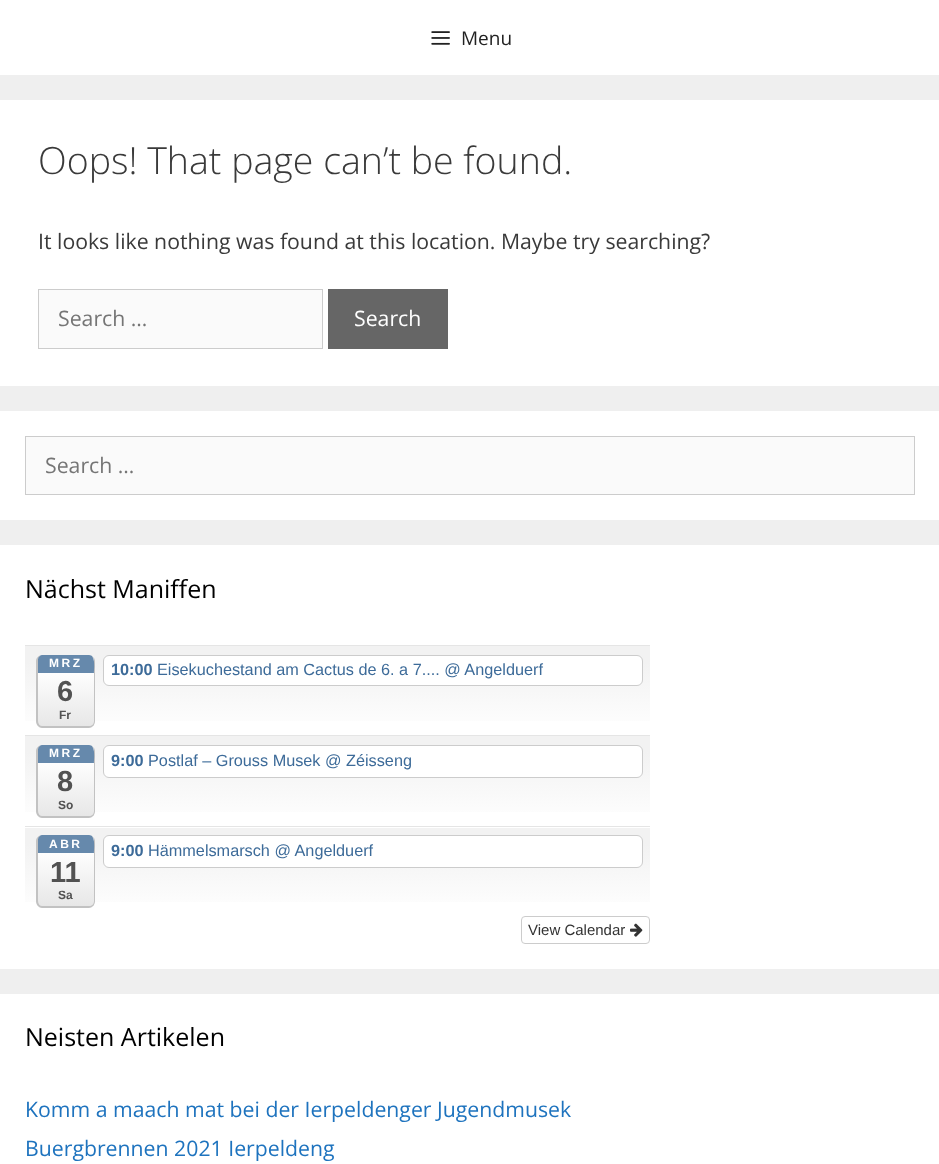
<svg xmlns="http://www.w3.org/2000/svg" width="939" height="1164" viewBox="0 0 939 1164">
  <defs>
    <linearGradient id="g1" gradientUnits="userSpaceOnUse" x1="338" y1="646" x2="338" y2="735"><stop offset="0" stop-color="rgb(242,242,242)"/><stop offset="0.18" stop-color="rgb(242,242,242)"/><stop offset="1" stop-color="rgb(255,255,255)"/></linearGradient>
    <clipPath id="clip1"><rect x="36" y="655" width="59" height="73" rx="6"/></clipPath>
    <linearGradient id="g2" gradientUnits="userSpaceOnUse" x1="66" y1="655" x2="66" y2="726"><stop offset="0" stop-color="rgb(255,255,255)"/><stop offset="0.21" stop-color="rgb(255,255,255)"/><stop offset="1" stop-color="rgb(231,231,231)"/></linearGradient>
    <linearGradient id="g3" gradientUnits="userSpaceOnUse" x1="338" y1="736" x2="338" y2="826"><stop offset="0" stop-color="rgb(242,242,242)"/><stop offset="0.18" stop-color="rgb(242,242,242)"/><stop offset="1" stop-color="rgb(255,255,255)"/></linearGradient>
    <clipPath id="clip2"><rect x="36" y="745" width="59" height="73" rx="6"/></clipPath>
    <linearGradient id="g4" gradientUnits="userSpaceOnUse" x1="66" y1="745" x2="66" y2="816"><stop offset="0" stop-color="rgb(255,255,255)"/><stop offset="0.21" stop-color="rgb(255,255,255)"/><stop offset="1" stop-color="rgb(231,231,231)"/></linearGradient>
    <linearGradient id="g5" gradientUnits="userSpaceOnUse" x1="338" y1="828" x2="338" y2="916"><stop offset="0" stop-color="rgb(242,242,242)"/><stop offset="0.18" stop-color="rgb(242,242,242)"/><stop offset="1" stop-color="rgb(255,255,255)"/></linearGradient>
    <clipPath id="clip3"><rect x="36" y="835" width="59" height="73" rx="6"/></clipPath>
    <linearGradient id="g6" gradientUnits="userSpaceOnUse" x1="66" y1="835" x2="66" y2="906"><stop offset="0" stop-color="rgb(255,255,255)"/><stop offset="0.21" stop-color="rgb(255,255,255)"/><stop offset="1" stop-color="rgb(231,231,231)"/></linearGradient>
  </defs>
  <rect width="100%" height="100%" fill="rgb(239,239,239)"/>
  <rect x="0" y="0" width="939" height="75" fill="rgb(255,255,255)"/>
  <image x="431" y="31" width="19" height="14" href="pic1.png"/>
  <text x="461" y="45" font-family="Open Sans" font-size="19" fill="rgb(34,34,34)">Menu</text>
  <rect x="0" y="100" width="939" height="286" fill="rgb(255,255,255)"/>
  <text x="38" y="174" font-family="Open Sans" font-size="37.5" font-weight="300" fill="rgb(58,58,58)">Oops! That page can’t be found.</text>
  <text x="38" y="249" font-family="Open Sans" font-size="21.25" fill="rgb(58,58,58)">It looks like nothing was found at this location. Maybe try searching?</text>
  <rect x="38.5" y="289.5" width="284" height="59" fill="rgb(250,250,250)" stroke="rgb(204,204,204)"/>
  <text x="58" y="326" font-family="Open Sans" font-size="21.25" fill="rgb(117,117,117)">Search …</text>
  <rect x="328" y="289" width="120" height="60" fill="rgb(102,102,102)"/>
  <text x="354" y="326" font-family="Open Sans" font-size="21.25" fill="rgb(255,255,255)">Search</text>
  <rect x="0" y="411" width="939" height="109" fill="rgb(255,255,255)"/>
  <rect x="25.5" y="436.5" width="889" height="58" fill="rgb(250,250,250)" stroke="rgb(204,204,204)"/>
  <text x="45" y="473" font-family="Open Sans" font-size="21.25" fill="rgb(117,117,117)">Search …</text>
  <rect x="0" y="545" width="939" height="424" fill="rgb(255,255,255)"/>
  <text x="25" y="598" font-family="Open Sans" font-size="25" fill="rgb(0,0,0)">Nächst Maniffen</text>
  <rect x="25" y="646" width="625" height="75" fill="url(#g1)"/>
  <rect x="25" y="645" width="625" height="1" fill="rgb(229,229,229)"/>
  <g clip-path="url(#clip1)">
    <rect x="38" y="655" width="56" height="71" fill="url(#g2)"/>
  </g>
  <path d="M42 655H89C92 655 95 658 95 661V721C95 725 92 728 89 728H42C39 728 36 725 36 721V661C36 658 39 655 42 655ZM42 655H89C92 655 94 658 94 661V721C94 724 92 726 89 726H42C40 726 38 724 38 721V661C38 658 40 655 42 655Z" fill="rgb(194,194,194)" fill-rule="evenodd"/>
  <path d="M43 655C40 655 38 657 38 660V673H94C94 669 96 655 89 655Z" fill="rgb(102,137,172)"/>
  <text x="49" y="667" font-family="Liberation Sans" font-size="12" font-weight="bold" letter-spacing="2.5" fill="rgb(255,255,255)">MRZ</text>
  <text x="57" y="701" font-family="Liberation Sans" font-size="29" font-weight="bold" fill="rgb(82,82,82)">6</text>
  <text x="59" y="719" font-family="Liberation Sans" font-size="12" font-weight="bold" fill="rgb(82,82,82)">Fr</text>
  <rect x="103.5" y="655.5" width="539" height="30" rx="5.5" fill="rgb(255,255,255)" stroke="rgb(204,204,204)"/>
  <text x="111" y="675" font-family="Liberation Sans" font-size="16.25" font-weight="bold" fill="rgb(61,107,153)">10:00</text>
  <text x="157" y="675" font-family="Liberation Sans" font-size="16.25" fill="rgb(61,107,153)">Eisekuchestand am Cactus de 6. a 7.... @ Angelduerf</text>
  <rect x="25" y="736" width="625" height="76" fill="url(#g3)"/>
  <rect x="25" y="735" width="625" height="1" fill="rgb(229,229,229)"/>
  <g clip-path="url(#clip2)">
    <rect x="38" y="745" width="56" height="71" fill="url(#g4)"/>
  </g>
  <path d="M42 745H89C92 745 95 748 95 751V811C95 815 92 818 89 818H42C39 818 36 815 36 811V751C36 748 39 745 42 745ZM42 745H89C92 745 94 748 94 751V811C94 814 92 816 89 816H42C40 816 38 814 38 811V751C38 748 40 745 42 745Z" fill="rgb(194,194,194)" fill-rule="evenodd"/>
  <path d="M43 745C40 745 38 747 38 750V763H94C94 759 96 745 89 745Z" fill="rgb(102,137,172)"/>
  <text x="49" y="757" font-family="Liberation Sans" font-size="12" font-weight="bold" letter-spacing="2.5" fill="rgb(255,255,255)">MRZ</text>
  <text x="57" y="791" font-family="Liberation Sans" font-size="29" font-weight="bold" fill="rgb(82,82,82)">8</text>
  <text x="58" y="809" font-family="Liberation Sans" font-size="12" font-weight="bold" fill="rgb(82,82,82)">So</text>
  <rect x="103.5" y="745.5" width="539" height="32" rx="5.5" fill="rgb(255,255,255)" stroke="rgb(204,204,204)"/>
  <text x="111" y="766" font-family="Liberation Sans" font-size="16.25" font-weight="bold" fill="rgb(61,107,153)">9:00</text>
  <text x="148" y="766" font-family="Liberation Sans" font-size="16.25" fill="rgb(61,107,153)">Postlaf – Grouss Musek @ Zéisseng</text>
  <rect x="25" y="828" width="625" height="74" fill="url(#g5)"/>
  <rect x="25" y="826" width="625" height="1" fill="rgb(229,229,229)"/>
  <g clip-path="url(#clip3)">
    <rect x="38" y="835" width="56" height="71" fill="url(#g6)"/>
  </g>
  <path d="M42 835H89C92 835 95 838 95 841V901C95 905 92 908 89 908H42C39 908 36 905 36 901V841C36 838 39 835 42 835ZM42 835H89C92 835 94 838 94 841V901C94 904 92 906 89 906H42C40 906 38 904 38 901V841C38 838 40 835 42 835Z" fill="rgb(194,194,194)" fill-rule="evenodd"/>
  <path d="M43 835C40 835 38 837 38 840V853H94C94 849 96 835 89 835Z" fill="rgb(102,137,172)"/>
  <text x="49" y="848" font-family="Liberation Sans" font-size="12" font-weight="bold" letter-spacing="2.5" fill="rgb(255,255,255)">ABR</text>
  <text x="50" y="882" font-family="Liberation Sans" font-size="29" font-weight="bold" fill="rgb(82,82,82)">11</text>
  <text x="58" y="899" font-family="Liberation Sans" font-size="12" font-weight="bold" fill="rgb(82,82,82)">Sa</text>
  <rect x="103.5" y="835.5" width="539" height="32" rx="5.5" fill="rgb(255,255,255)" stroke="rgb(204,204,204)"/>
  <text x="111" y="856" font-family="Liberation Sans" font-size="16.25" font-weight="bold" fill="rgb(61,107,153)">9:00</text>
  <text x="148" y="856" font-family="Liberation Sans" font-size="16.25" fill="rgb(61,107,153)">Hämmelsmarsch @ Angelduerf</text>
  <rect x="521.5" y="916.5" width="128" height="27" rx="3.5" fill="none" stroke="rgb(204,204,204)"/>
  <text x="528" y="935" font-family="Liberation Sans" font-size="15" fill="rgb(51,51,51)">View Calendar</text>
  <image x="630" y="923" width="13" height="14" href="pic2.png"/>
  <rect x="0" y="994" width="939" height="170" fill="rgb(255,255,255)"/>
  <text x="25" y="1046" font-family="Open Sans" font-size="25" fill="rgb(0,0,0)">Neisten Artikelen</text>
  <g font-family="Open Sans" font-size="21.25" fill="rgb(30,115,190)">
    <text>
      <tspan x="25" y="1117">Komm a maach mat bei der Ierpeldenger Jugendmusek</tspan>
      <tspan x="25" y="1156">Buergbrennen 2021 Ierpeldeng</tspan>
    </text>
  </g>
</svg>
